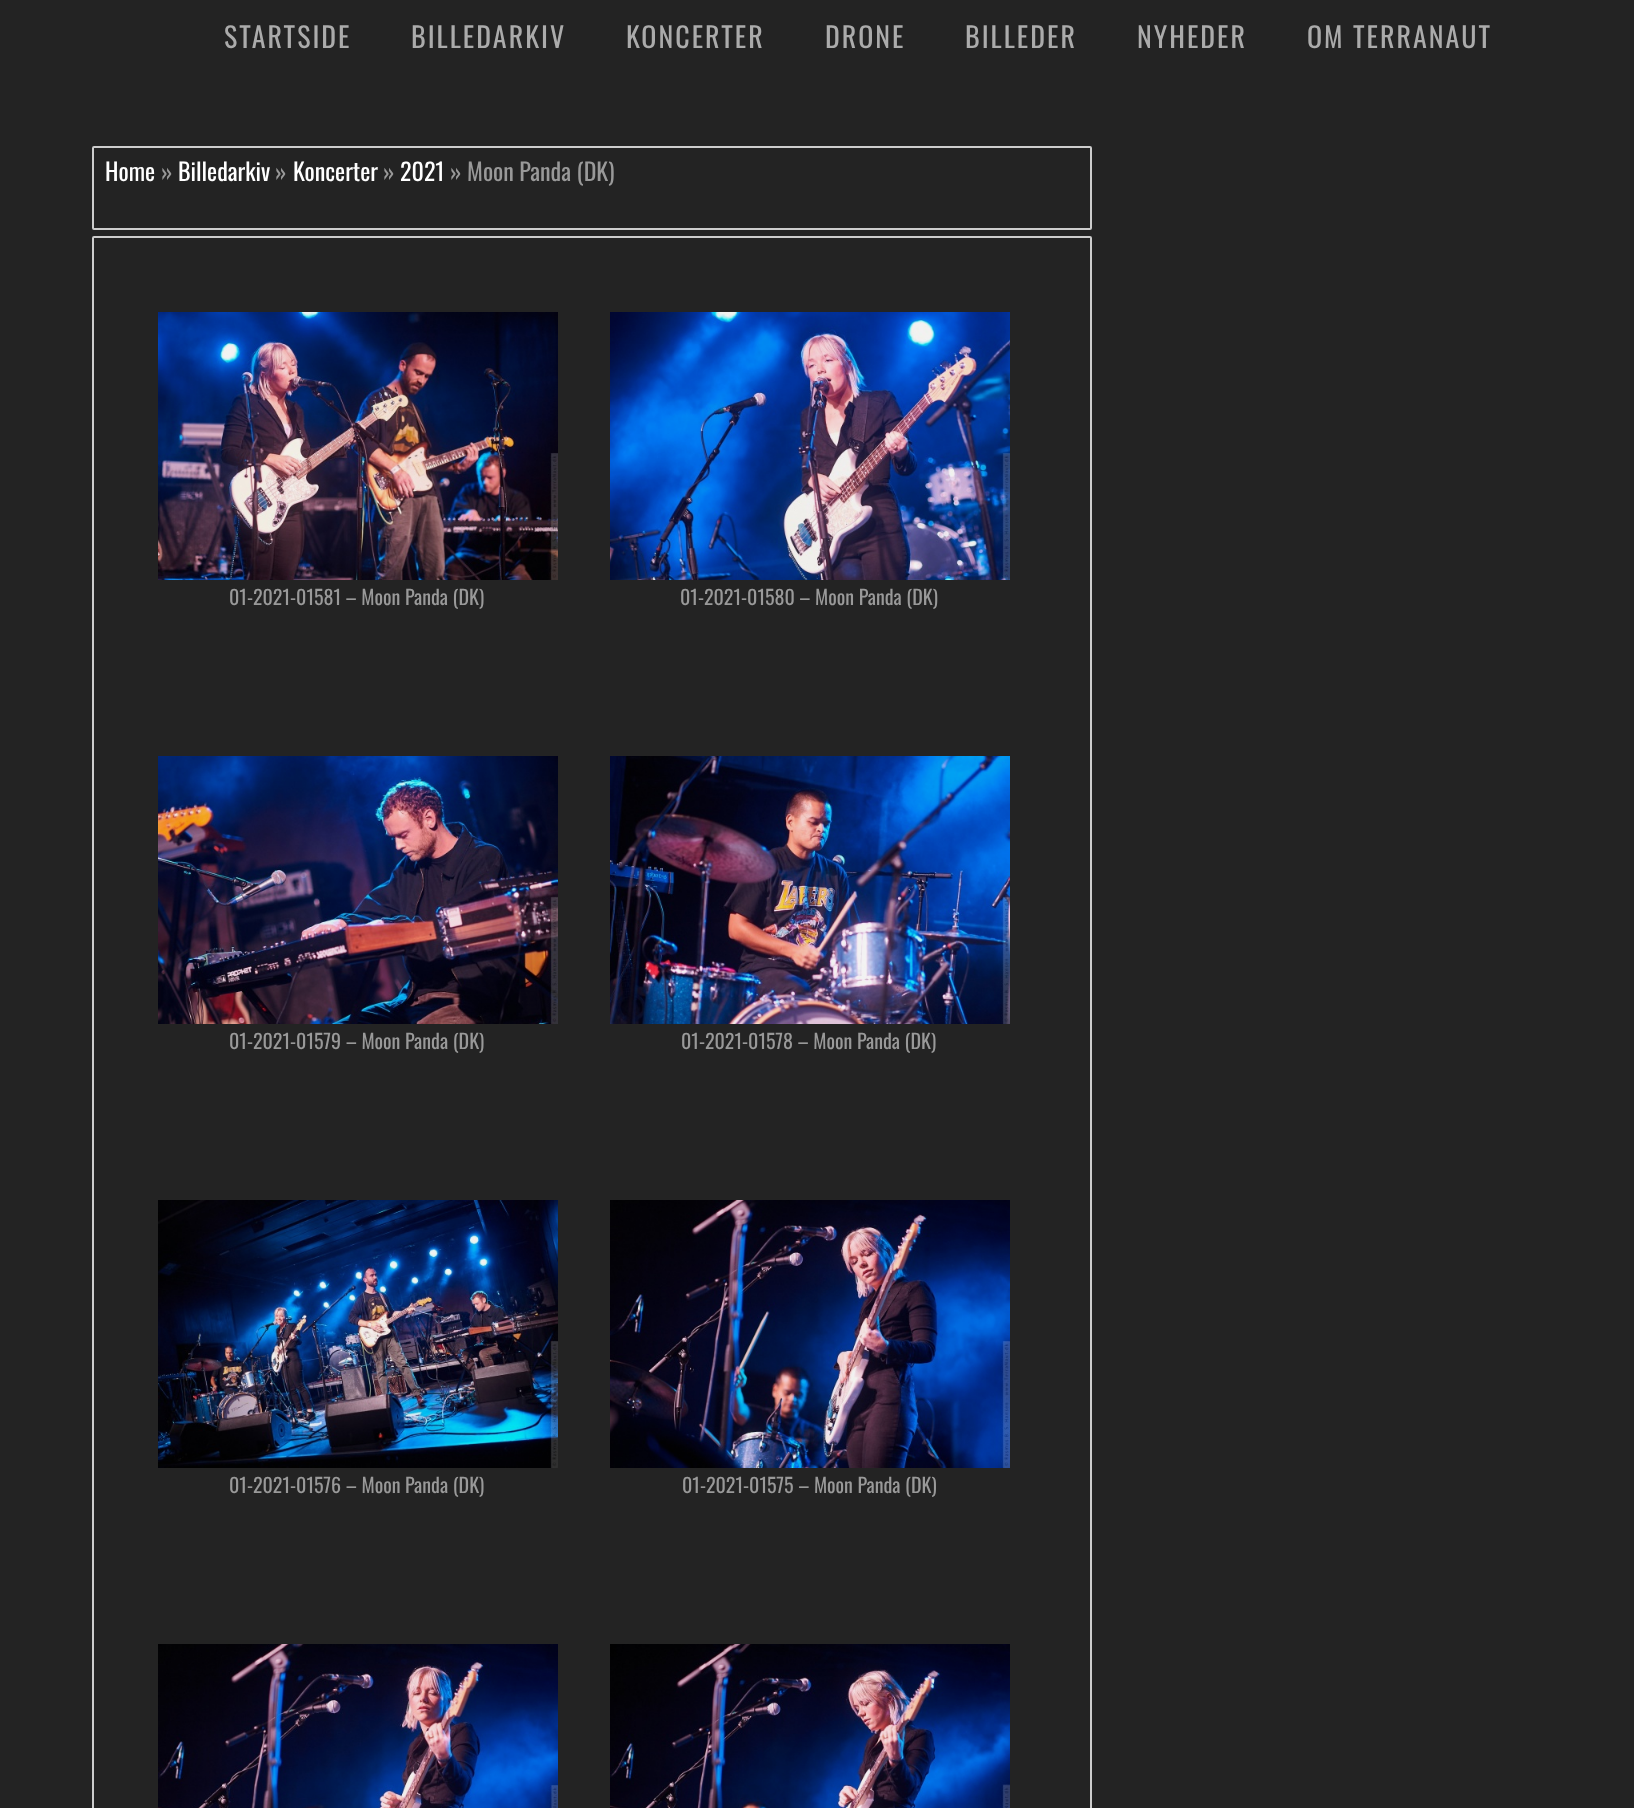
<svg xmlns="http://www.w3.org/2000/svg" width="1634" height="1808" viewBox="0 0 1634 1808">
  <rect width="100%" height="100%" fill="rgb(35,35,35)"/>
  <g font-family="Oswald" font-size="28" letter-spacing="2" fill="rgb(171,171,171)">
    <text x="224" y="48">STARTSIDE</text>
    <text x="411" y="48">BILLEDARKIV</text>
    <text x="626" y="48">KONCERTER</text>
    <text x="825" y="48">DRONE</text>
    <text x="965" y="48">BILLEDER</text>
    <text x="1137" y="48">NYHEDER</text>
    <text x="1307" y="48">OM TERRANAUT</text>
  </g>
  <rect x="93" y="147" width="998" height="82" rx="1" fill="none" stroke="rgb(204,204,204)" stroke-width="2"/>
  <text x="105" y="181" font-family="Oswald" font-size="24" fill="rgb(255,255,255)">Home</text>
  <text x="161" y="181" font-family="Oswald" font-size="24" fill="rgb(153,153,153)">»</text>
  <text x="178" y="181" font-family="Oswald" font-size="24" fill="rgb(255,255,255)">Billedarkiv</text>
  <text x="275" y="181" font-family="Oswald" font-size="24" fill="rgb(153,153,153)">»</text>
  <text x="293" y="181" font-family="Oswald" font-size="24" fill="rgb(255,255,255)">Koncerter</text>
  <text x="383" y="181" font-family="Oswald" font-size="24" fill="rgb(153,153,153)">»</text>
  <text x="400" y="181" font-family="Oswald" font-size="24" fill="rgb(255,255,255)">2021</text>
  <text x="450" y="181" font-family="Oswald" font-size="24" fill="rgb(153,153,153)">» Moon Panda (DK)</text>
  <rect x="93" y="237" width="998" height="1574" rx="1" fill="none" stroke="rgb(204,204,204)" stroke-width="2"/>
  <image x="158" y="312" width="400" height="268" href="pic1.png"/>
  <text x="229" y="605" font-family="Oswald" font-size="20" fill="rgb(153,153,153)">01-2021-01581 – Moon Panda (DK)</text>
  <image x="610" y="312" width="400" height="268" href="pic2.png"/>
  <text x="680" y="605" font-family="Oswald" font-size="20" fill="rgb(153,153,153)">01-2021-01580 – Moon Panda (DK)</text>
  <image x="158" y="756" width="400" height="268" href="pic3.png"/>
  <text x="229" y="1049" font-family="Oswald" font-size="20" fill="rgb(153,153,153)">01-2021-01579 – Moon Panda (DK)</text>
  <image x="610" y="756" width="400" height="268" href="pic4.png"/>
  <text x="681" y="1049" font-family="Oswald" font-size="20" fill="rgb(153,153,153)">01-2021-01578 – Moon Panda (DK)</text>
  <image x="158" y="1200" width="400" height="268" href="pic5.png"/>
  <text x="229" y="1493" font-family="Oswald" font-size="20" fill="rgb(153,153,153)">01-2021-01576 – Moon Panda (DK)</text>
  <image x="610" y="1200" width="400" height="268" href="pic6.png"/>
  <text x="682" y="1493" font-family="Oswald" font-size="20" fill="rgb(153,153,153)">01-2021-01575 – Moon Panda (DK)</text>
  <image x="158" y="1644" width="400" height="164" href="pic7.png"/>
  <image x="610" y="1644" width="400" height="164" href="pic8.png"/>
</svg>
